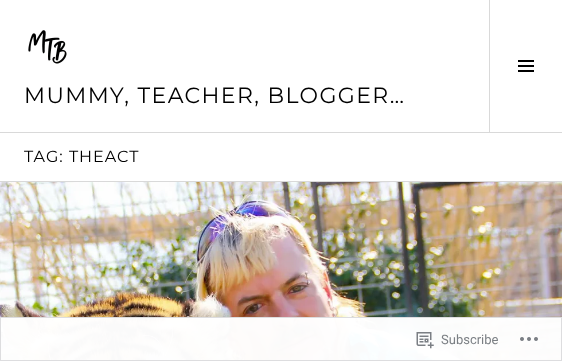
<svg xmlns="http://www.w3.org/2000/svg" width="562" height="361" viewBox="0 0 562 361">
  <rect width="100%" height="100%" fill="rgb(255,255,255)"/>
  <rect x="0" y="132" width="562" height="1" fill="rgb(217,217,217)"/>
  <image x="28" y="30" width="39" height="34" href="pic1.png"/>
  <text x="24" y="103" font-family="Montserrat" font-size="22" font-weight="100" letter-spacing="1.4" fill="rgb(0,0,0)">MUMMY, TEACHER, BLOGGER…</text>
  <rect x="489" y="0" width="1" height="132" fill="rgb(217,217,217)"/>
  <image x="518" y="60" width="16" height="12" href="pic2.png"/>
  <rect x="0" y="181" width="562" height="1" fill="rgb(217,217,217)"/>
  <text x="24" y="162" font-family="Montserrat" font-size="16" font-weight="100" letter-spacing="1" fill="rgb(0,0,0)">TAG: THEACT</text>
  <image x="0" y="182" width="562" height="179" href="pic3.png"/>
  <rect x="0" y="317" width="562" height="44" fill="rgba(255,255,255,0.98)"/>
  <rect x="0.5" y="317.5" width="561" height="43" fill="none" stroke="rgba(220,220,222,0.98)"/>
  <image x="416" y="332" width="18" height="17" href="pic4.png"/>
  <text x="441" y="344" font-family="Roboto" font-size="13" fill="rgb(123,127,132)">Subscribe</text>
  <image x="520" y="337" width="18" height="4" href="pic5.png"/>
</svg>
